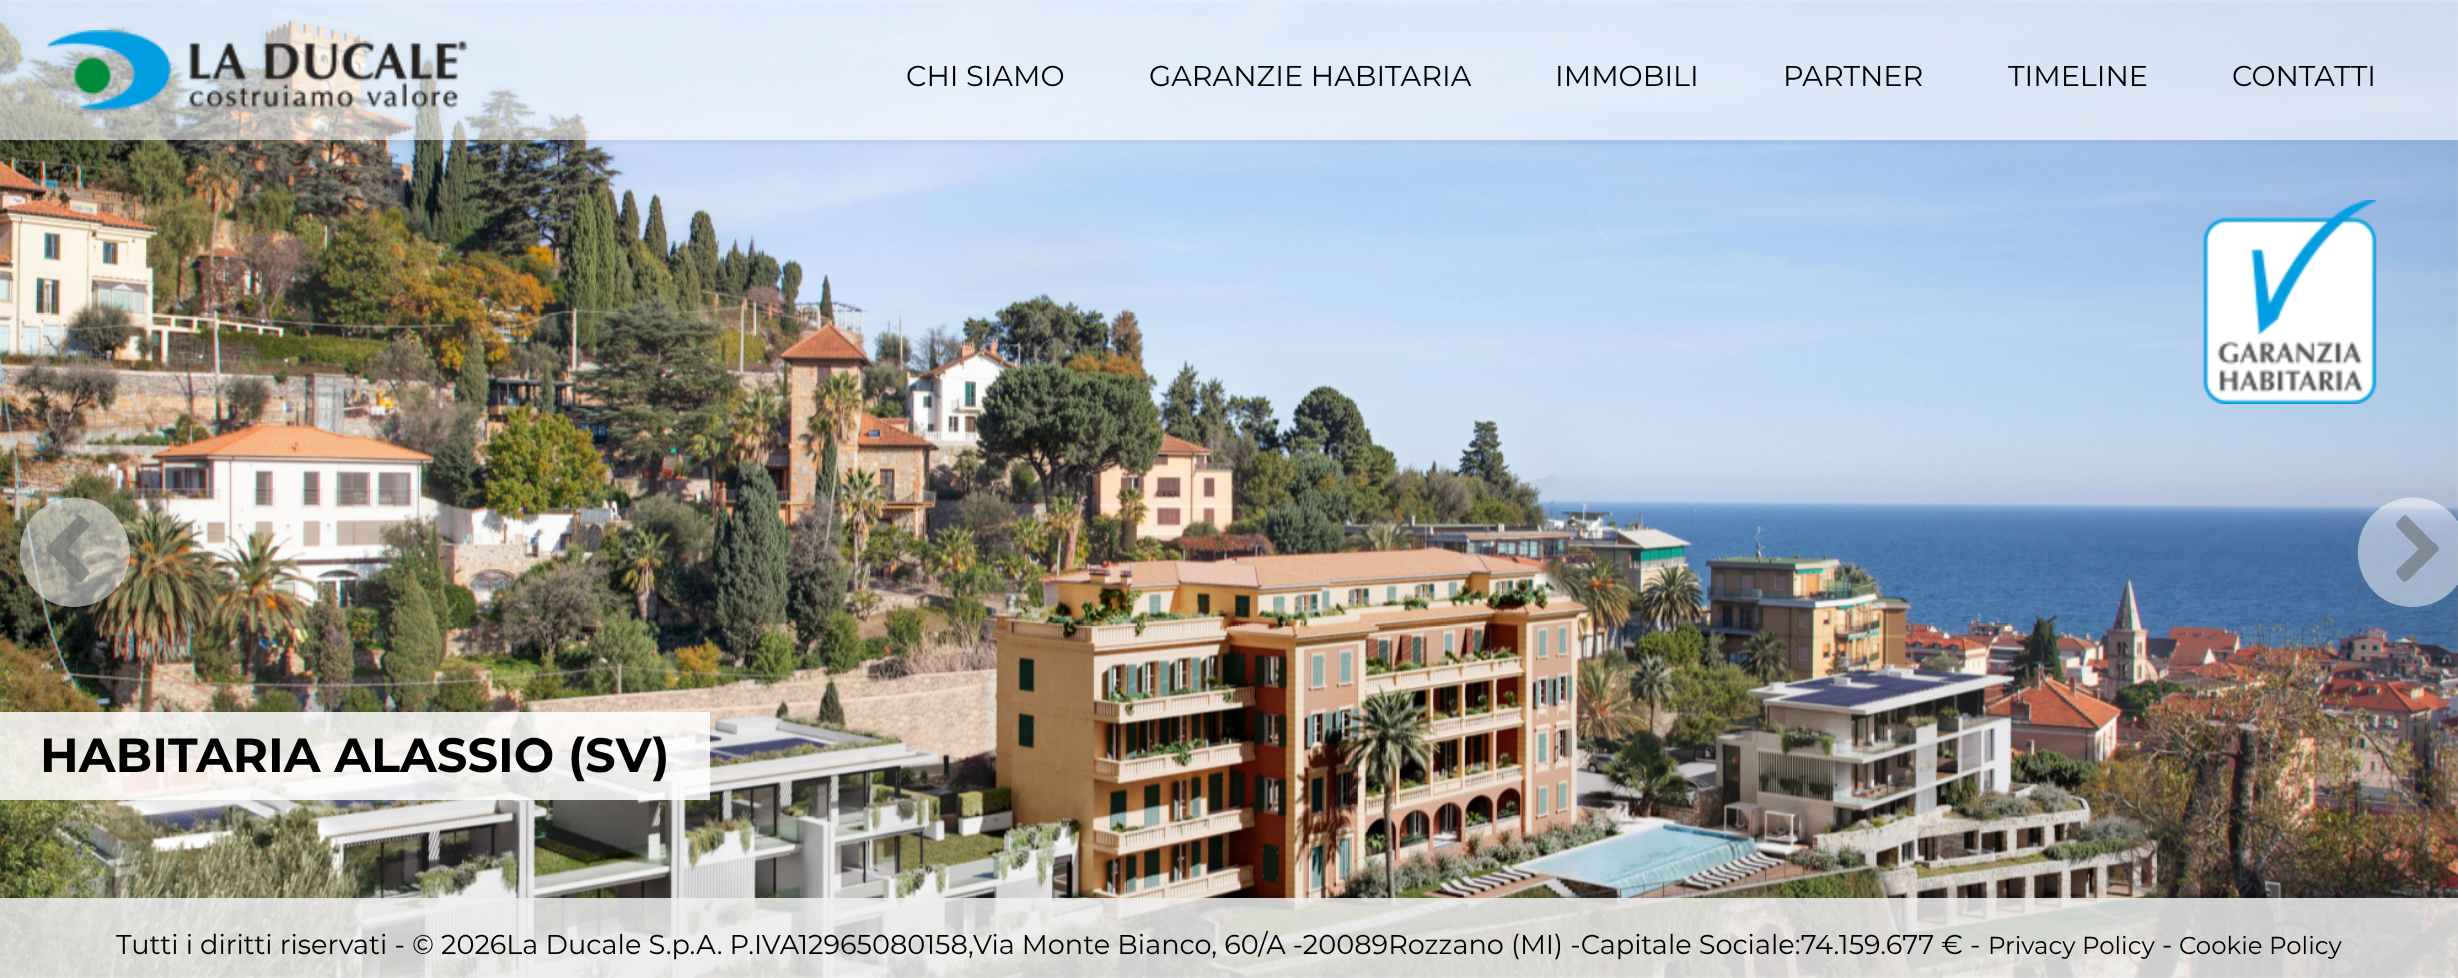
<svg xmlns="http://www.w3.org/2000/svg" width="2458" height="978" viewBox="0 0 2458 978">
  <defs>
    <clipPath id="clip1"><rect x="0" y="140" width="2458" height="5"/></clipPath>
  </defs>
  <rect width="100%" height="100%" fill="rgb(255,255,255)"/>
  <image x="0" y="0" width="2458" height="978" href="pic3.png"/>
  <g clip-path="url(#clip1)">
    <rect x="0" y="2" width="2458" height="140" fill="rgba(0,0,0,0.07)" filter="blur(5px)"/>
  </g>
  <rect x="0" y="0" width="2458" height="140" fill="rgba(255,255,255,0.6)"/>
  <rect x="0" y="0" width="2458" height="2" fill="rgba(255,255,255,0.15)"/>
  <image x="47" y="30" width="421" height="80" href="pic1.png"/>
  <g font-family="Montserrat" font-size="28.75" fill="rgb(0,0,0)">
    <text x="906" y="86">CHI SIAMO</text>
    <text x="1149" y="86">GARANZIE HABITARIA</text>
    <text x="1555" y="86">IMMOBILI</text>
    <text x="1783" y="86">PARTNER</text>
    <text x="2008" y="86">TIMELINE</text>
    <text x="2232" y="86">CONTATTI</text>
  </g>
  <path d="M122 525C128 534 130 545 130 556C126 610 54 626 27 580C22 570 19 559 20 549C23 495 95 478 122 525Z" fill="rgba(255,255,255,0.5)"/>
  <path d="M89 527L67 549L85 567C92 574 91 573 84 579C79 585 79 582 73 576L47 550V547L78 516C80 514 83 517 84 518L89 523C90 524 90 526 89 527Z" fill="rgba(94,95,97,0.5)"/>
  <path d="M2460 525C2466 534 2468 545 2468 556C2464 610 2392 626 2365 580C2360 570 2357 559 2358 549C2361 495 2433 478 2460 525Z" fill="rgba(255,255,255,0.5)"/>
  <path d="M2438 551L2407 581C2404 584 2400 578 2399 577C2393 571 2397 570 2404 563L2419 549C2416 546 2396 527 2396 525C2396 522 2399 521 2400 519C2406 513 2405 514 2412 521L2433 542C2434 542 2439 546 2439 549Z" fill="rgba(94,95,97,0.5)"/>
  <image x="2203" y="200" width="174" height="204" href="pic2.png"/>
  <rect x="0" y="712" width="710" height="88" fill="rgba(255,255,255,0.85)"/>
  <text x="40" y="772" font-family="Montserrat" font-size="48" font-weight="bold" fill="rgb(0,0,0)">HABITARIA ALASSIO (SV)</text>
  <rect x="0" y="898" width="2458" height="80" fill="rgba(239,239,239,0.85)"/>
  <text x="116" y="954" font-family="Montserrat" font-size="27.2" fill="rgb(0,0,0)">Tutti i diritti riservati - © 2026La Ducale S.p.A. P.IVA12965080158,Via Monte Bianco, 60/A -20089Rozzano (MI) -Capitale Sociale:74.159.677 € -</text>
  <text x="1988" y="954" font-family="Montserrat" font-size="24.5" fill="rgb(0,0,0)">Privacy Policy</text>
  <text x="2162" y="954" font-family="Montserrat" font-size="27.2" fill="rgb(0,0,0)">-</text>
  <text x="2179" y="954" font-family="Montserrat" font-size="24.5" fill="rgb(0,0,0)">Cookie Policy</text>
</svg>
